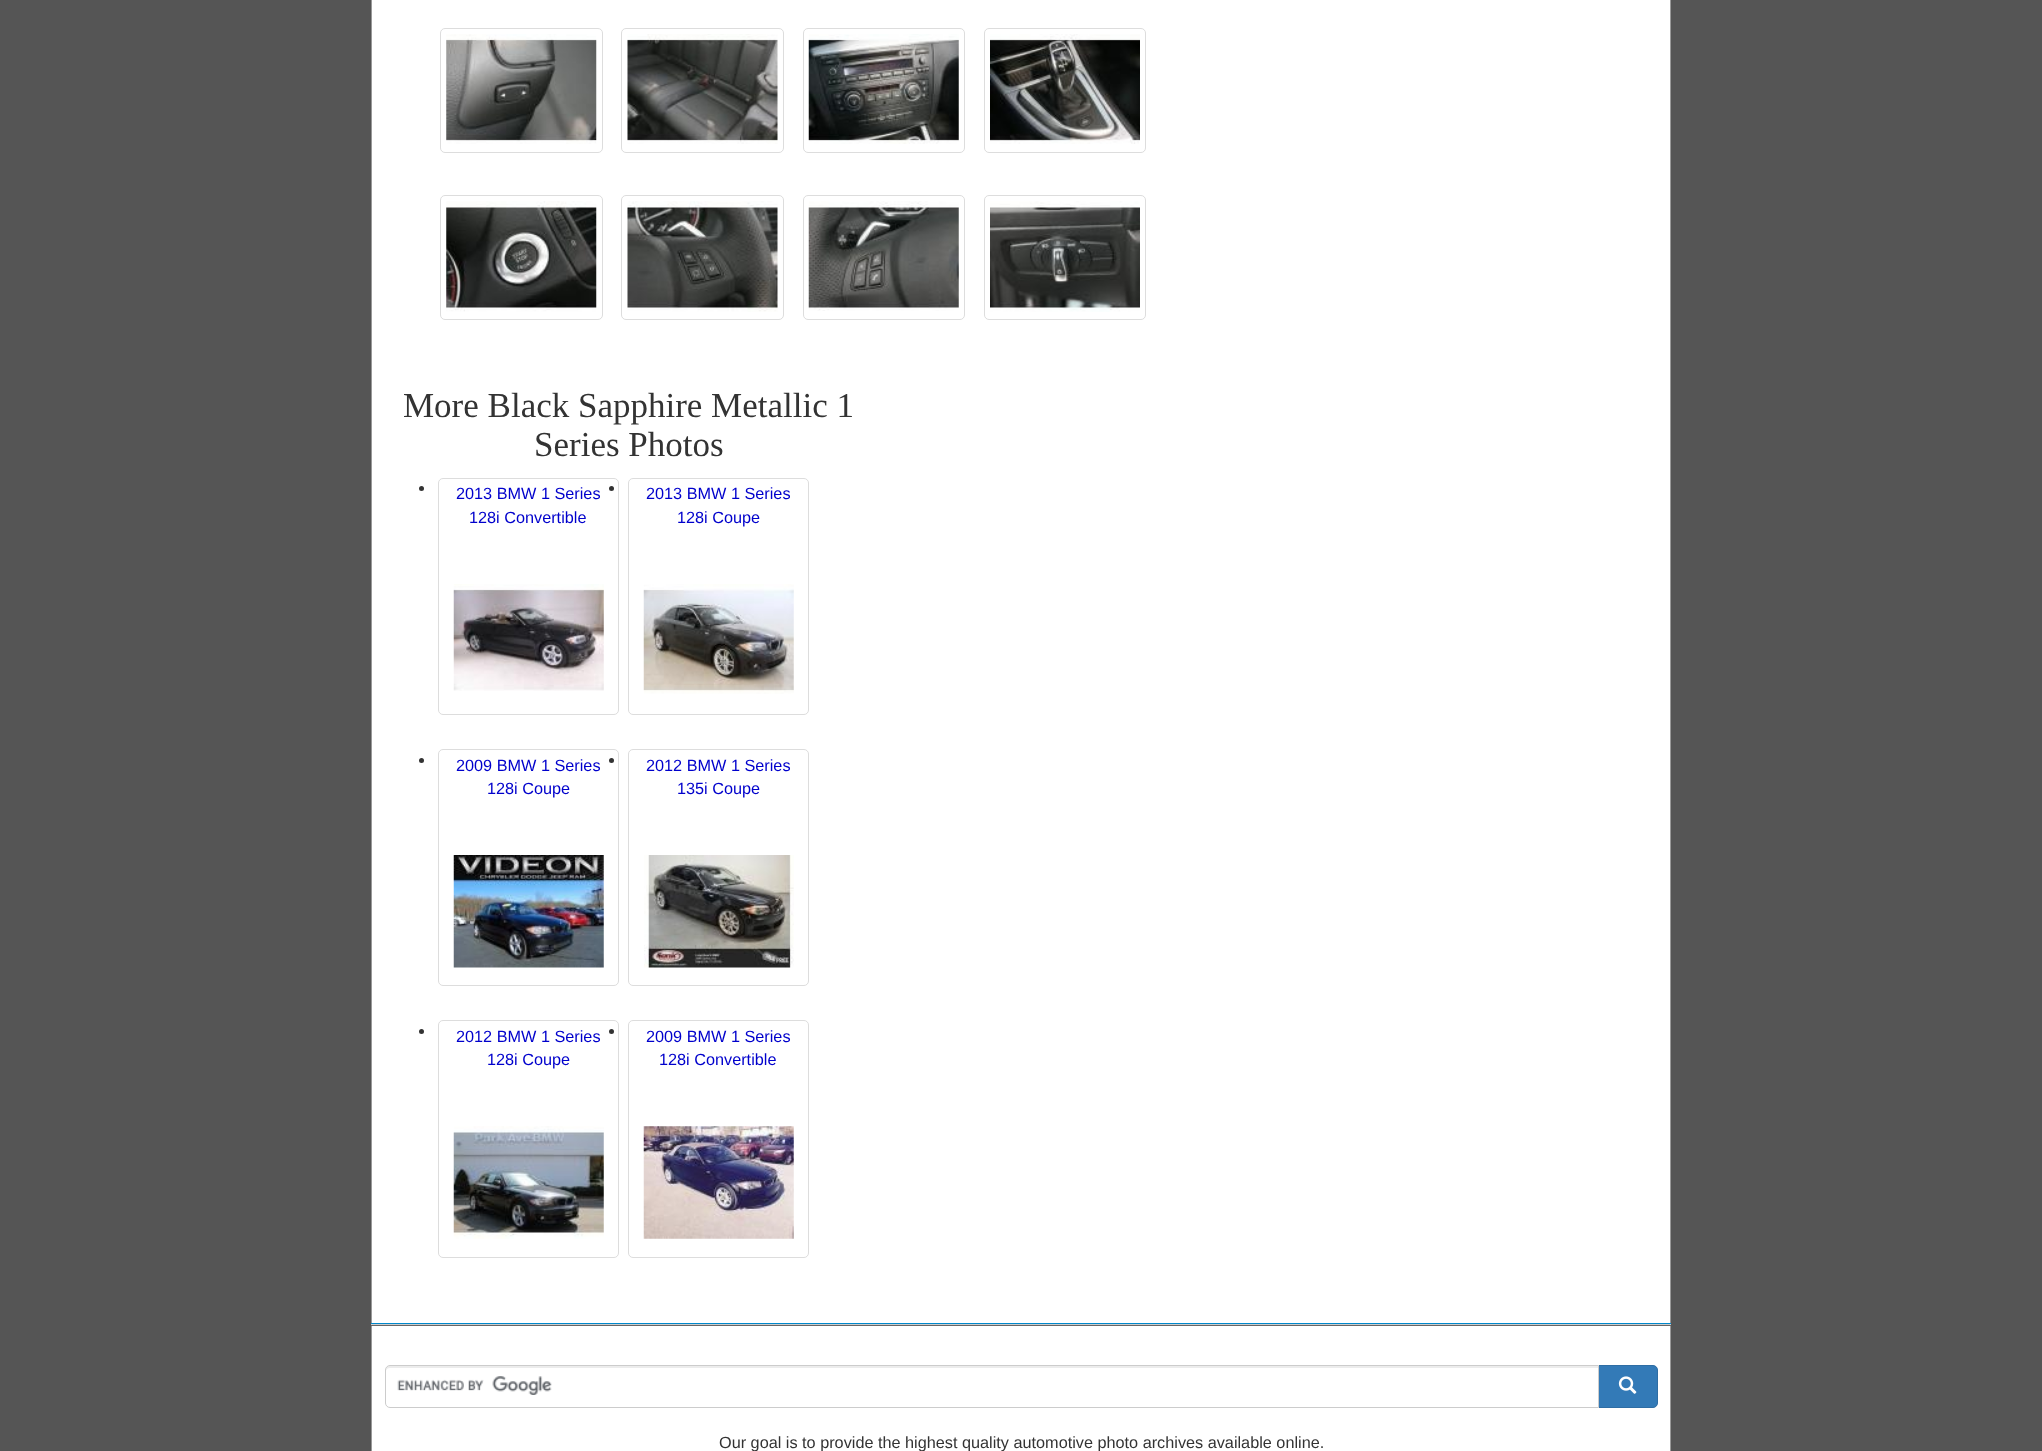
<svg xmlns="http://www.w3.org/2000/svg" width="2042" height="1451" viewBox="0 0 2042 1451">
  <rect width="100%" height="100%" fill="rgb(85,85,85)"/>
  <rect x="371.5" y="-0.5" width="1299" height="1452" fill="rgb(255,255,255)" stroke="rgb(153,153,153)"/>
  <rect x="440.5" y="28.5" width="162" height="124" rx="4.5" fill="none" stroke="rgb(221,221,221)"/>
  <image x="446" y="34" width="151" height="110" href="pic1.png"/>
  <rect x="621.5" y="28.5" width="162" height="124" rx="4.5" fill="none" stroke="rgb(221,221,221)"/>
  <image x="627" y="34" width="151" height="110" href="pic2.png"/>
  <rect x="803.5" y="28.5" width="161" height="124" rx="4.5" fill="none" stroke="rgb(221,221,221)"/>
  <image x="808" y="34" width="151" height="110" href="pic3.png"/>
  <rect x="984.5" y="28.5" width="161" height="124" rx="4.5" fill="none" stroke="rgb(221,221,221)"/>
  <image x="990" y="34" width="150" height="110" href="pic4.png"/>
  <rect x="440.5" y="195.5" width="162" height="124" rx="4.5" fill="none" stroke="rgb(221,221,221)"/>
  <image x="446" y="201" width="151" height="111" href="pic5.png"/>
  <rect x="621.5" y="195.5" width="162" height="124" rx="4.5" fill="none" stroke="rgb(221,221,221)"/>
  <image x="627" y="201" width="151" height="111" href="pic6.png"/>
  <rect x="803.5" y="195.5" width="161" height="124" rx="4.5" fill="none" stroke="rgb(221,221,221)"/>
  <image x="808" y="201" width="151" height="110" href="pic7.png"/>
  <rect x="984.5" y="195.5" width="161" height="124" rx="4.5" fill="none" stroke="rgb(221,221,221)"/>
  <image x="990" y="201" width="150" height="111" href="pic8.png"/>
  <g font-family="Liberation Serif" font-size="35" fill="rgb(51,51,51)">
    <text x="403" y="417">More Black Sapphire Metallic 1</text>
    <text x="534" y="456">Series Photos</text>
  </g>
  <circle cx="421.5" cy="488.5" r="2.5" fill="rgb(51,51,51)"/>
  <rect x="438.5" y="478.5" width="180" height="236" rx="4.5" fill="none" stroke="rgb(221,221,221)"/>
  <g font-family="Liberation Sans" font-size="16.25" fill="rgb(0,0,204)">
    <text x="456" y="499">2013 BMW 1 Series</text>
    <text x="469" y="523">128i Convertible</text>
  </g>
  <image x="453" y="584" width="151" height="107" href="pic9.png"/>
  <circle cx="611.5" cy="488.5" r="2.5" fill="rgb(51,51,51)"/>
  <rect x="628.5" y="478.5" width="180" height="236" rx="4.5" fill="none" stroke="rgb(221,221,221)"/>
  <g font-family="Liberation Sans" font-size="16.25" fill="rgb(0,0,204)">
    <text x="646" y="499">2013 BMW 1 Series</text>
    <text x="677" y="523">128i Coupe</text>
  </g>
  <image x="643" y="584" width="151" height="110" href="pic10.png"/>
  <circle cx="421.5" cy="760.5" r="2.5" fill="rgb(51,51,51)"/>
  <rect x="438.5" y="749.5" width="180" height="236" rx="4.5" fill="none" stroke="rgb(221,221,221)"/>
  <g font-family="Liberation Sans" font-size="16.25" fill="rgb(0,0,204)">
    <text x="456" y="771">2009 BMW 1 Series</text>
    <text x="487" y="794">128i Coupe</text>
  </g>
  <image x="453" y="855" width="151" height="113" href="pic11.png"/>
  <circle cx="611.5" cy="760.5" r="2.5" fill="rgb(51,51,51)"/>
  <rect x="628.5" y="749.5" width="180" height="236" rx="4.5" fill="none" stroke="rgb(221,221,221)"/>
  <g font-family="Liberation Sans" font-size="16.25" fill="rgb(0,0,204)">
    <text x="646" y="771">2012 BMW 1 Series</text>
    <text x="677" y="794">135i Coupe</text>
  </g>
  <image x="644" y="855" width="150" height="113" href="pic12.png"/>
  <circle cx="421.5" cy="1031.5" r="2.5" fill="rgb(51,51,51)"/>
  <rect x="438.5" y="1020.5" width="180" height="237" rx="4.5" fill="none" stroke="rgb(221,221,221)"/>
  <g font-family="Liberation Sans" font-size="16.25" fill="rgb(0,0,204)">
    <text x="456" y="1042">2012 BMW 1 Series</text>
    <text x="487" y="1065">128i Coupe</text>
  </g>
  <image x="453" y="1126" width="151" height="113" href="pic13.png"/>
  <circle cx="611.5" cy="1031.5" r="2.5" fill="rgb(51,51,51)"/>
  <rect x="628.5" y="1020.5" width="180" height="237" rx="4.5" fill="none" stroke="rgb(221,221,221)"/>
  <g font-family="Liberation Sans" font-size="16.25" fill="rgb(0,0,204)">
    <text x="646" y="1042">2009 BMW 1 Series</text>
    <text x="659" y="1065">128i Convertible</text>
  </g>
  <image x="643" y="1126" width="151" height="113" href="pic14.png"/>
  <rect x="371" y="1323" width="1300" height="1" fill="rgb(0,136,204)"/>
  <rect x="371" y="1324" width="1300" height="1" fill="rgb(204,204,204)"/>
  <rect x="371" y="1325" width="1300" height="1" fill="rgb(102,102,102)"/>
  <path d="M1598.5 1365.5H1653C1655.5 1365.5 1657.5 1367.5 1657.5 1370V1403C1657.5 1405.5 1655.5 1407.5 1653 1407.5H1598.5Z" fill="rgb(51,122,183)" stroke="rgb(46,109,164)"/>
  <path d="M390 1365H1599V1408H390C387 1408 385 1406 385 1403V1370C385 1367 387 1365 390 1365Z" fill="rgb(255,255,255)"/>
  <image x="397" y="1376" width="155" height="19" href="pic15.png"/>
  <path d="M390 1368H1598V1366H390C387 1366 386 1368 386 1371C386 1369 388 1368 390 1368Z" fill="rgb(236,236,236)"/>
  <path d="M390 1365.5H1598.5V1407.5H390C387.5 1407.5 385.5 1405.5 385.5 1403V1370C385.5 1367.5 387.5 1365.5 390 1365.5Z" fill="none" stroke="rgb(204,204,204)"/>
  <image x="1618" y="1376" width="19" height="18" href="pic16.png"/>
  <text x="719" y="1448" font-family="Liberation Sans" font-size="16.25" fill="rgb(51,51,51)">Our goal is to provide the highest quality automotive photo archives available online.</text>
</svg>
